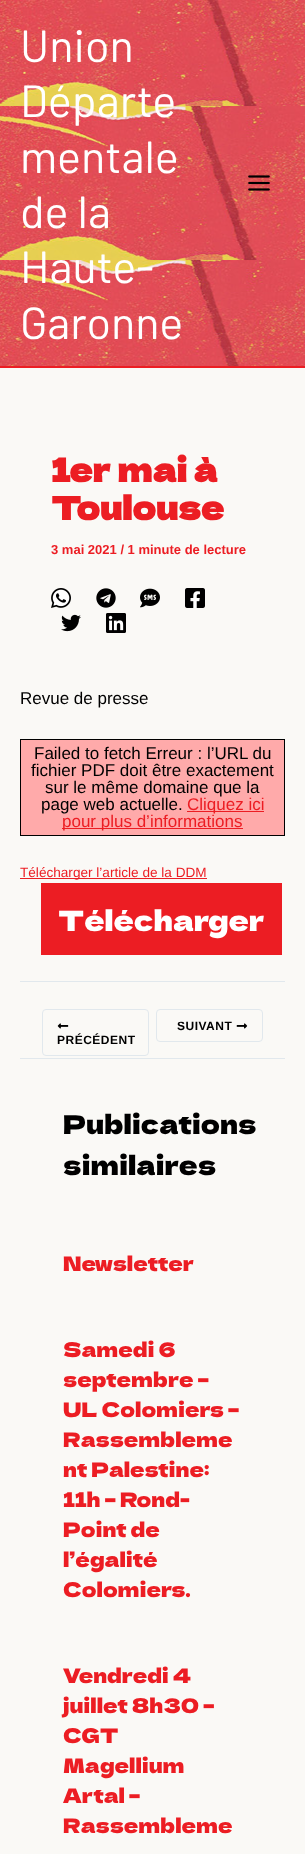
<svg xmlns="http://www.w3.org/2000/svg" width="305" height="1854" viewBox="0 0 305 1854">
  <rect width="100%" height="100%" fill="rgb(250,249,246)"/>
  <image x="0" y="0" width="305" height="366" href="pic1.png"/>
  <rect x="0" y="366" width="305" height="2" fill="rgb(236,29,35)"/>
  <g font-family="Barlow" font-size="45" fill="rgb(255,255,255)">
    <text>
      <tspan x="20" y="62">Union</tspan>
      <tspan x="20" y="117">Départe</tspan>
      <tspan x="20" y="173">mentale</tspan>
      <tspan x="20" y="228">de la</tspan>
      <tspan x="20" y="283">Haute-</tspan>
      <tspan x="20" y="339">Garonne</tspan>
    </text>
  </g>
  <image x="248" y="175" width="22" height="16" href="pic2.png"/>
  <g font-family="Dela Gothic One" font-size="32" font-weight="bold" fill="rgb(236,29,35)">
    <text>
      <tspan x="51" y="482">1er mai à</tspan>
      <tspan x="51" y="520">Toulouse</tspan>
    </text>
  </g>
  <text x="51" y="554" font-family="Liberation Sans" font-size="13" font-weight="bold" fill="rgb(236,29,35)">3 mai 2021 / 1 minute de lecture</text>
  <image x="51" y="588" width="20" height="20" href="pic3.png"/>
  <image x="96" y="588" width="20" height="20" href="pic4.png"/>
  <image x="140" y="588" width="20" height="20" href="pic5.png"/>
  <image x="185" y="588" width="20" height="20" href="pic6.png"/>
  <image x="61" y="614" width="20" height="18" href="pic7.png"/>
  <image x="106" y="613" width="20" height="20" href="pic8.png"/>
  <text x="20" y="704" font-family="Liberation Sans" font-size="17" fill="rgb(0,0,0)">Revue de presse</text>
  <rect x="20.5" y="739.5" width="264" height="96" fill="none" stroke="rgb(0,0,0)"/>
  <rect x="21" y="740" width="263" height="95" fill="rgb(255,170,170)"/>
  <g font-family="Liberation Sans" font-size="17" fill="rgb(0,0,0)">
    <text x="34" y="759">Failed to fetch Erreur : l’URL du</text>
    <text x="31" y="776">fichier PDF doit être exactement</text>
    <text x="45" y="793">sur le même domaine que la</text>
    <text x="41" y="810">page web actuelle.</text>
  </g>
  <rect x="187" y="811" width="77" height="1" fill="rgb(236,29,35)"/>
  <text x="187" y="810" font-family="Liberation Sans" font-size="17" fill="rgb(236,29,35)">Cliquez ici</text>
  <rect x="62" y="828" width="181" height="1" fill="rgb(236,29,35)"/>
  <text x="62" y="827" font-family="Liberation Sans" font-size="17" fill="rgb(236,29,35)">pour plus d’informations</text>
  <rect x="20" y="878" width="187" height="1" fill="rgb(236,29,35)"/>
  <text x="20" y="877" font-family="Liberation Sans" font-size="13.6" fill="rgb(236,29,35)">Télécharger l’article de la DDM</text>
  <rect x="41" y="883" width="241" height="72" fill="rgb(236,29,35)"/>
  <text x="58" y="931" font-family="Dela Gothic One" font-size="28" fill="rgb(255,255,255)">Télécharger</text>
  <rect x="20" y="981" width="265" height="1" fill="rgb(225,232,237)"/>
  <rect x="156.5" y="1009.5" width="106" height="32" rx="3.5" fill="none" stroke="rgb(225,232,237)"/>
  <text x="177" y="1030" font-family="Liberation Sans" font-size="12" font-weight="bold" letter-spacing="0.5" fill="rgb(0,0,0)">SUIVANT</text>
  <image x="236" y="1023" width="12" height="6" href="pic9.png"/>
  <rect x="42.5" y="1009.5" width="106" height="46" rx="3.5" fill="none" stroke="rgb(225,232,237)"/>
  <image x="57" y="1023" width="12" height="6" href="pic10.png"/>
  <text x="57" y="1044" font-family="Liberation Sans" font-size="12" font-weight="bold" letter-spacing="0.5" fill="rgb(0,0,0)">PRÉCÉDENT</text>
  <rect x="20" y="1058" width="265" height="1" fill="rgb(225,232,237)"/>
  <g font-family="Dela Gothic One" font-size="26" fill="rgb(0,0,0)">
    <text>
      <tspan x="63" y="1134">Publications</tspan>
      <tspan x="63" y="1175">similaires</tspan>
    </text>
  </g>
  <g font-family="Dela Gothic One" font-size="20" fill="rgb(236,29,35)">
    <text x="63" y="1271">Newsletter</text>
    <text>
      <tspan x="63" y="1357">Samedi 6</tspan>
      <tspan x="63" y="1387">septembre –</tspan>
      <tspan x="63" y="1417">UL Colomiers –</tspan>
      <tspan x="63" y="1447">Rassembleme</tspan>
      <tspan x="63" y="1477">nt Palestine:</tspan>
      <tspan x="63" y="1507">11h – Rond-</tspan>
      <tspan x="63" y="1537">Point de</tspan>
      <tspan x="63" y="1567">l’égalité</tspan>
      <tspan x="63" y="1597">Colomiers.</tspan>
    </text>
    <text>
      <tspan x="63" y="1683">Vendredi 4</tspan>
      <tspan x="63" y="1713">juillet 8h30 –</tspan>
      <tspan x="63" y="1743">CGT</tspan>
      <tspan x="63" y="1773">Magellium</tspan>
      <tspan x="63" y="1803">Artal –</tspan>
      <tspan x="63" y="1833">Rassembleme</tspan>
    </text>
  </g>
</svg>
